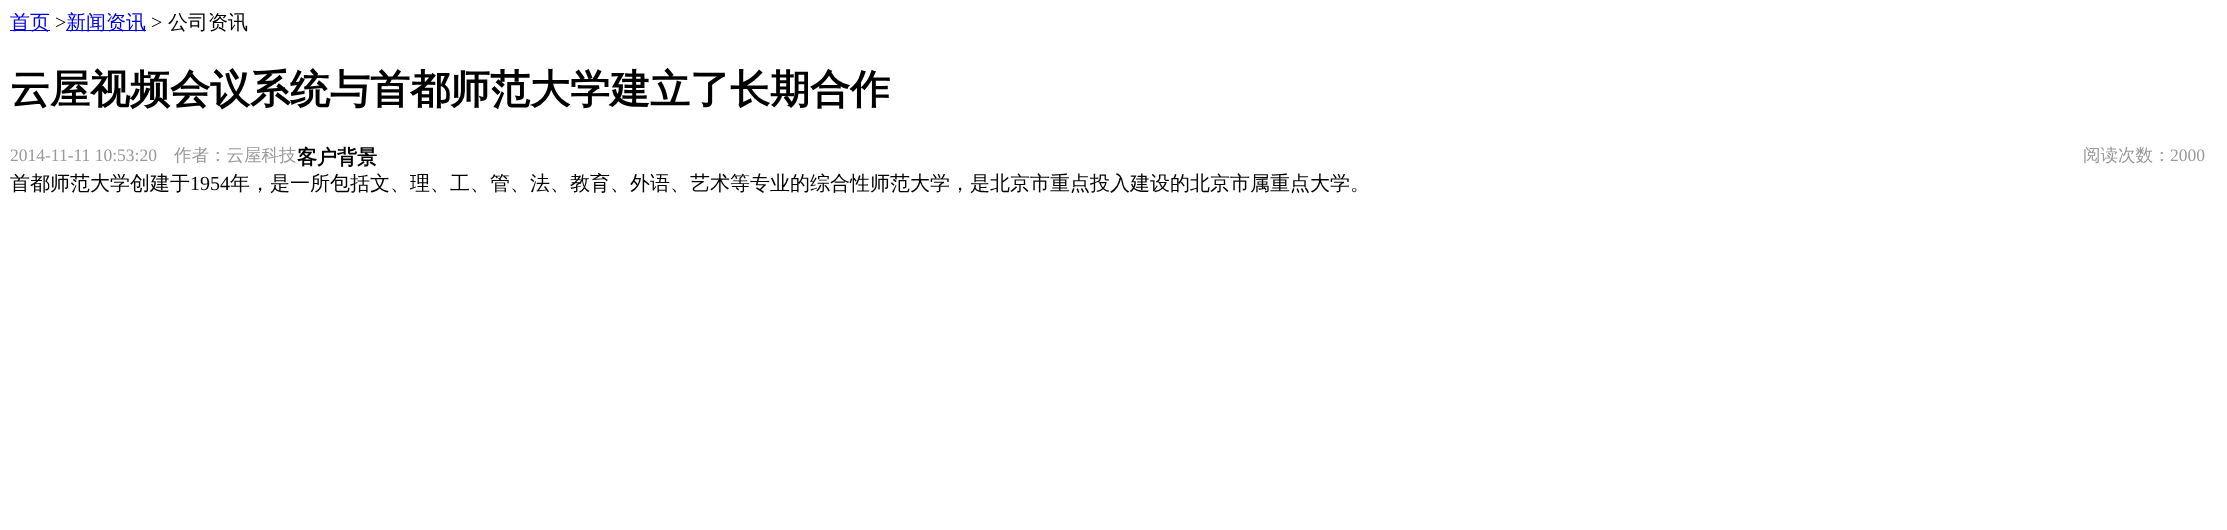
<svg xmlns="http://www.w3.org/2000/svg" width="2227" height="530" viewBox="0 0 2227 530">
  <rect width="100%" height="100%" fill="rgb(255,255,255)"/>
  <rect x="10" y="30" width="40" height="1" fill="rgb(0,0,238)"/>
  <text x="10" y="29" font-family="WenQuanYi Zen Hei" font-size="20" font-weight="500" fill="rgb(0,0,238)">首页</text>
  <text x="55" y="29" font-family="Liberation Serif" font-size="20" fill="rgb(0,0,0)">&gt;</text>
  <rect x="66" y="30" width="80" height="1" fill="rgb(0,0,238)"/>
  <text x="66" y="29" font-family="WenQuanYi Zen Hei" font-size="20" font-weight="500" fill="rgb(0,0,238)">新闻资讯</text>
  <text x="151" y="29" font-family="Liberation Serif" font-size="20" fill="rgb(0,0,0)">&gt;</text>
  <text x="168" y="29" font-family="WenQuanYi Zen Hei" font-size="20" font-weight="500" fill="rgb(0,0,0)">公司资讯</text>
  <text x="10" y="103" font-family="WenQuanYi Zen Hei" font-size="40" font-weight="bold" fill="rgb(0,0,0)">云屋视频会议系统与首都师范大学建立了长期合作</text>
  <text x="10" y="161" font-family="Liberation Serif" font-size="17.5" fill="rgb(153,153,153)">2014-11-11 10:53:20</text>
  <g font-family="WenQuanYi Zen Hei" font-size="17.5" font-weight="500" fill="rgb(153,153,153)">
    <text x="174" y="161">作者：云屋科技</text>
    <text x="2083" y="161">阅读次数：</text>
  </g>
  <text x="2170" y="161" font-family="Liberation Serif" font-size="17.5" fill="rgb(153,153,153)">2000</text>
  <text x="297" y="164" font-family="WenQuanYi Zen Hei" font-size="20" font-weight="bold" fill="rgb(0,0,0)">客户背景</text>
  <text x="10" y="190" font-family="WenQuanYi Zen Hei" font-size="20" font-weight="500" fill="rgb(0,0,0)">首都师范大学创建于</text>
  <text x="190" y="190" font-family="Liberation Serif" font-size="20" fill="rgb(0,0,0)">1954</text>
  <text x="230" y="190" font-family="WenQuanYi Zen Hei" font-size="20" font-weight="500" fill="rgb(0,0,0)">年，是一所包括文、理、工、管、法、教育、外语、艺术等专业的综合性师范大学，是北京市重点投入建设的北京市属重点大学。</text>
</svg>
